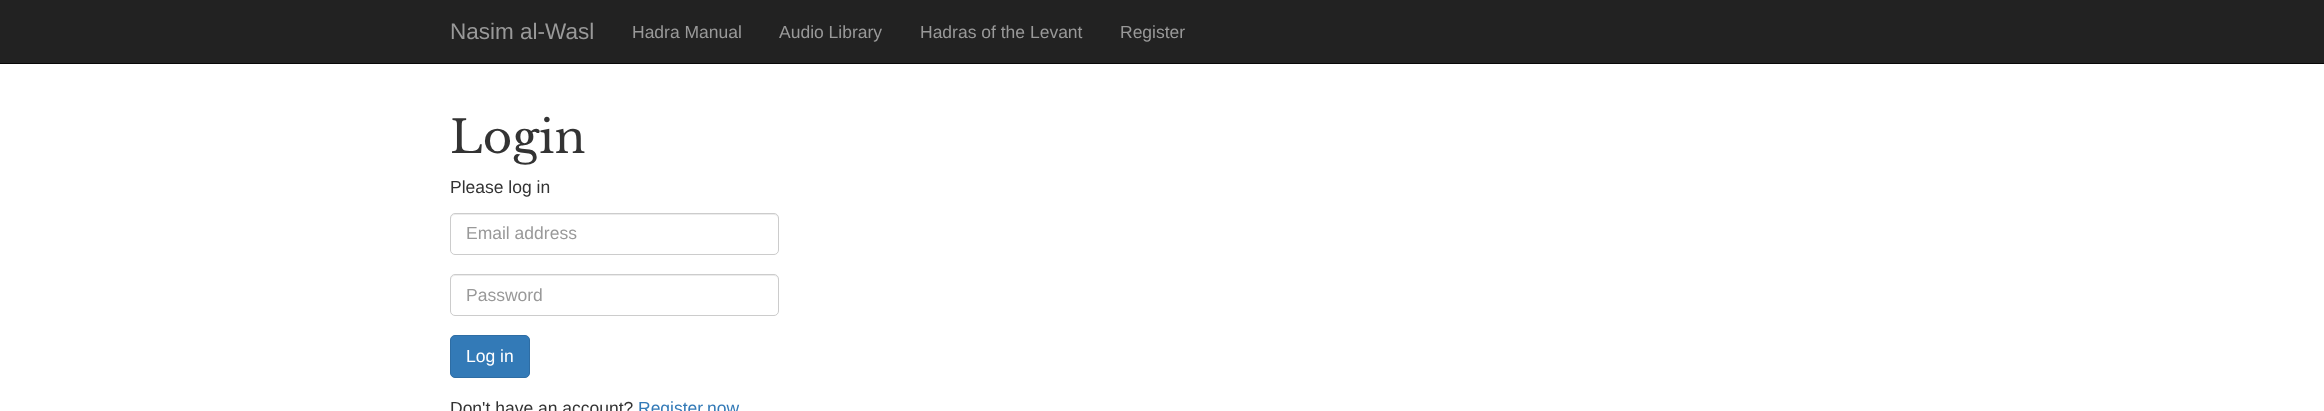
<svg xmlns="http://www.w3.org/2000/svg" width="2324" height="411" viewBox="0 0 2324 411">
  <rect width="100%" height="100%" fill="rgb(255,255,255)"/>
  <rect x="0" y="0" width="2324" height="63" fill="rgb(34,34,34)"/>
  <rect x="0" y="63" width="2324" height="1" fill="rgb(8,8,8)"/>
  <text x="450" y="39" font-family="Liberation Sans" font-size="22.5" fill="rgb(153,153,153)">Nasim al-Wasl</text>
  <g font-family="Liberation Sans" font-size="17.5" fill="rgb(153,153,153)">
    <text x="632" y="38">Hadra Manual</text>
    <text x="779" y="38">Audio Library</text>
    <text x="920" y="38">Hadras of the Levant</text>
    <text x="1120" y="38">Register</text>
  </g>
  <text x="450" y="153" font-family="Libre Baskerville" font-size="45" fill="rgb(51,51,51)">Login</text>
  <text x="450" y="193" font-family="Liberation Sans" font-size="17.5" fill="rgb(51,51,51)">Please log in</text>
  <path d="M455 215H774C776 215 778 217 778 219V218C778 216 776 214 774 214H455C453 214 451 216 451 218V219C451 217 453 215 455 215Z" fill="rgb(236,236,236)"/>
  <rect x="450.5" y="213.5" width="328" height="41" rx="4.5" fill="none" stroke="rgb(204,204,204)"/>
  <text x="466" y="239" font-family="Liberation Sans" font-size="17.5" fill="rgb(153,153,153)">Email address</text>
  <path d="M455 276H774C776 276 778 278 778 280V279C778 277 776 275 774 275H455C453 275 451 277 451 279V280C451 278 453 276 455 276Z" fill="rgb(236,236,236)"/>
  <rect x="450.5" y="274.5" width="328" height="41" rx="4.5" fill="none" stroke="rgb(204,204,204)"/>
  <text x="466" y="301" font-family="Liberation Sans" font-size="17.5" fill="rgb(153,153,153)">Password</text>
  <rect x="450.5" y="335.5" width="79" height="42" rx="4.5" fill="rgb(51,122,183)" stroke="rgb(46,109,164)"/>
  <text x="466" y="362" font-family="Liberation Sans" font-size="17.5" fill="rgb(255,255,255)">Log in</text>
  <text x="450" y="414" font-family="Liberation Sans" font-size="17.5" fill="rgb(51,51,51)">Don't have an account?</text>
  <text x="638" y="414" word-spacing="-1" font-family="Liberation Sans" font-size="17.5" fill="rgb(51,122,183)">Register now</text>
</svg>
